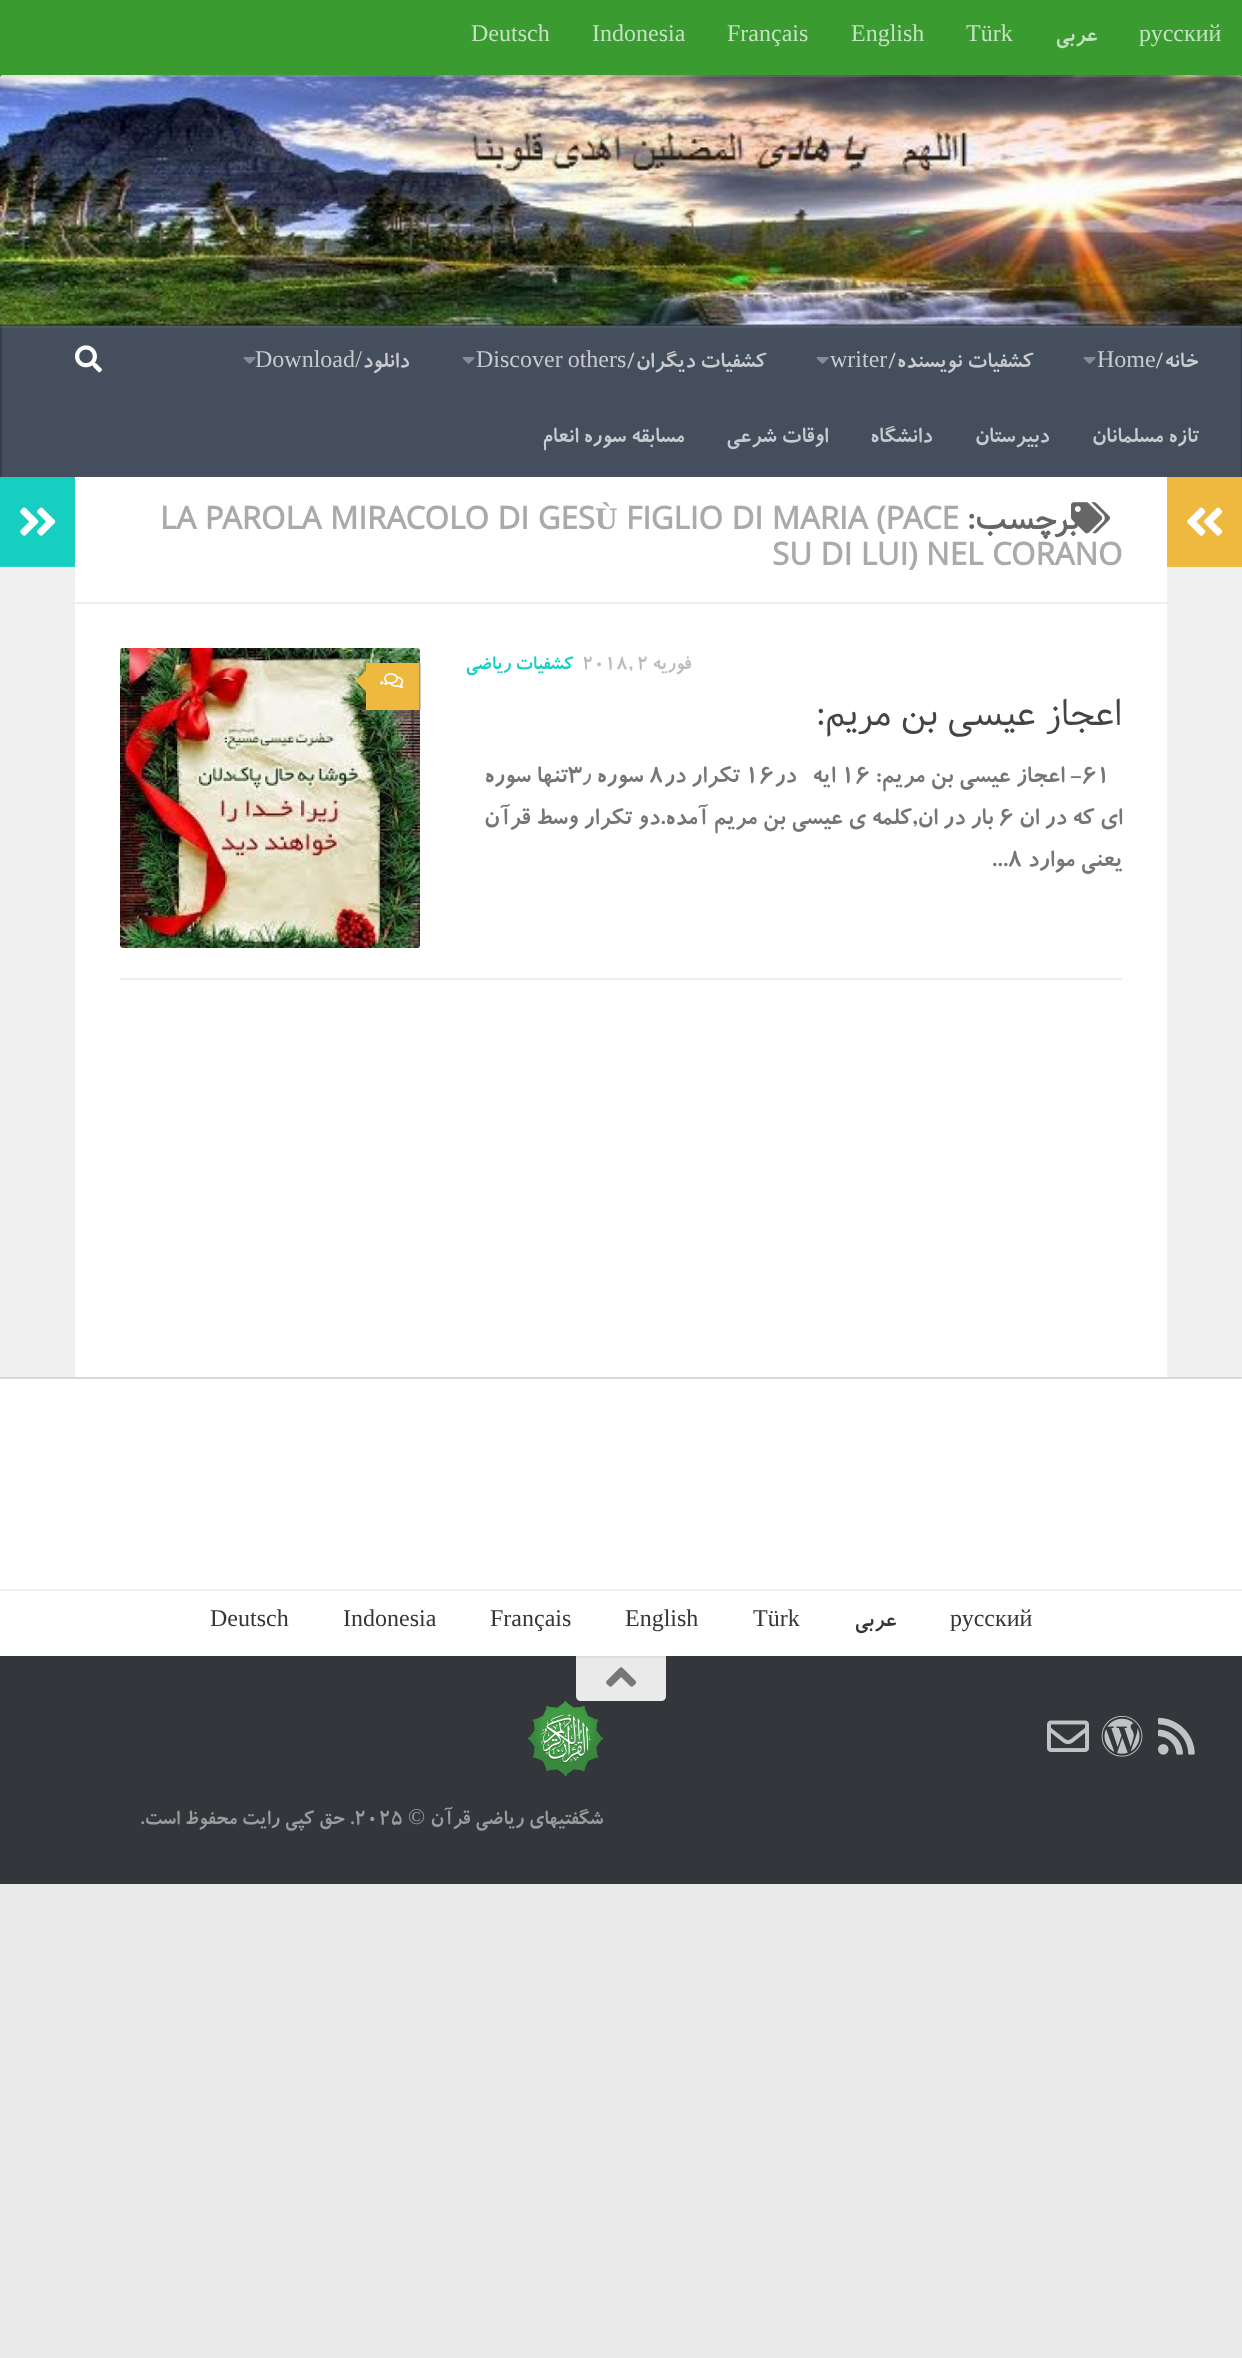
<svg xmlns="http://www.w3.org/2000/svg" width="1242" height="2358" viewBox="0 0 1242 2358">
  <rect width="100%" height="100%" fill="rgb(234,234,234)"/>
  <rect x="0" y="479" width="1242" height="900" fill="rgba(0,0,0,0.1)" filter="blur(1px)"/>
  <rect x="0" y="75" width="1242" height="402" fill="rgb(69,78,92)"/>
  <rect x="0" y="326" width="1242" height="2" fill="rgb(78,87,100)"/>
  <image x="0" y="75" width="1242" height="251" href="pic1.png"/>
  <rect x="0" y="75" width="1242" height="2" fill="rgba(255,255,255,0.15)"/>
  <rect x="0" y="0" width="1242" height="75" fill="rgba(0,0,0,0.2)" filter="blur(4px)"/>
  <rect x="0" y="0" width="1242" height="75" fill="rgb(57,155,48)"/>
  <text x="1139" y="41" font-family="Liberation Serif" font-size="24" fill="rgb(196,225,193)">русский</text>
  <text x="1097" y="41" font-family="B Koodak" font-size="24" font-weight="bold" direction="rtl" fill="rgb(196,225,193)">عربی</text>
  <g font-family="Liberation Serif" font-size="24" fill="rgb(196,225,193)">
    <text x="966" y="41">Türk</text>
    <text x="851" y="41">English</text>
    <text x="727" y="41">Français</text>
    <text x="592" y="41">Indonesia</text>
    <text x="471" y="41">Deutsch</text>
  </g>
  <rect x="0" y="324" width="1242" height="2" fill="rgba(0,0,0,0.2)"/>
  <rect x="1241" y="326" width="1" height="151" fill="rgb(55,62,74)"/>
  <rect x="1241" y="326" width="1" height="2" fill="rgb(65,72,83)"/>
  <rect x="0" y="326" width="2" height="151" fill="rgb(55,62,74)"/>
  <rect x="0" y="326" width="2" height="2" fill="rgb(65,72,83)"/>
  <text x="1198" y="367" font-family="B Koodak" font-size="24" font-weight="bold" direction="rtl" fill="rgb(199,202,206)">خانه/</text>
  <text x="1097" y="367" font-family="Liberation Serif" font-size="24" fill="rgb(199,202,206)">Home</text>
  <image x="1083" y="357" width="13" height="7" href="pic2.png"/>
  <text x="1033" y="367" font-family="B Koodak" font-size="24" font-weight="bold" direction="rtl" fill="rgb(199,202,206)">کشفیات نویسنده/</text>
  <text x="830" y="367" font-family="Liberation Serif" font-size="24" fill="rgb(199,202,206)">writer</text>
  <image x="816" y="357" width="13" height="7" href="pic2.png"/>
  <text x="766" y="367" font-family="B Koodak" font-size="24" font-weight="bold" direction="rtl" fill="rgb(199,202,206)">کشفیات دیگران/</text>
  <text x="476" y="367" word-spacing="-1" font-family="Liberation Serif" font-size="24" fill="rgb(199,202,206)">Discover others</text>
  <image x="462" y="357" width="13" height="7" href="pic2.png"/>
  <text x="409" y="367" font-family="B Koodak" font-size="24" font-weight="bold" direction="rtl" fill="rgb(199,202,206)">دانلود</text>
  <text x="255" y="367" font-family="Liberation Serif" font-size="24" fill="rgb(199,202,206)">Download</text>
  <text x="362" y="367" font-family="Liberation Serif" font-size="24" direction="rtl" fill="rgb(199,202,206)">/</text>
  <image x="243" y="357" width="13" height="7" href="pic2.png"/>
  <g font-family="B Koodak" font-size="24" font-weight="bold" direction="rtl" fill="rgb(199,202,206)">
    <text x="1199" y="442">تازه مسلمانان</text>
    <text x="1049" y="442">دبیرستان</text>
    <text x="932" y="442">دانشگاه</text>
    <text x="828" y="442">اوقات شرعی</text>
    <text x="684" y="442">مسابقه سوره انعام</text>
  </g>
  <image x="75" y="345" width="27" height="28" href="pic3.png"/>
  <rect x="75" y="477" width="1092" height="900" fill="rgb(255,255,255)"/>
  <rect x="1167" y="568" width="75" height="809" fill="rgb(240,240,240)"/>
  <rect x="1167" y="567" width="75" height="1" fill="rgb(242,242,242)"/>
  <rect x="1167" y="477" width="75" height="89" fill="rgb(239,185,63)"/>
  <rect x="1167" y="566" width="75" height="1" fill="rgb(241,192,82)"/>
  <image x="1187" y="507" width="36" height="29" href="pic4.png"/>
  <rect x="75" y="602" width="1092" height="2" fill="rgb(238,238,238)"/>
  <image x="1071" y="502" width="39" height="32" href="pic5.png"/>
  <text x="1079" y="529" font-family="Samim" font-size="31.25" font-weight="bold" direction="rtl" fill="rgb(102,102,102)">برچسب:</text>
  <text x="626" y="529" font-family="Samim" font-size="31.25" font-weight="bold" fill="rgb(170,170,170)">FIGLIO DI MARIA (PACE</text>
  <text x="595" y="529" font-family="Liberation Serif" font-size="31.25" font-weight="bold" fill="rgb(170,170,170)">Ù</text>
  <g font-family="Samim" font-size="31.25" font-weight="bold" fill="rgb(170,170,170)">
    <text x="160" y="529">LA PAROLA MIRACOLO DI GES</text>
    <text x="772" y="565">SU DI LUI) NEL CORANO</text>
  </g>
  <rect x="120" y="978" width="1002" height="2" fill="rgb(238,238,238)"/>
  <text x="691" y="669" font-family="B Koodak" font-size="21" font-weight="bold" direction="rtl" fill="rgb(187,187,187)">فوریه</text>
  <text x="582" y="669" font-family="B Koodak" font-size="21" font-weight="bold" fill="rgb(187,187,187)">2018, 2</text>
  <text x="573" y="669" font-family="B Koodak" font-size="21" font-weight="bold" direction="rtl" fill="rgb(22,207,193)">کشفیات ریاضی</text>
  <text x="1122" y="725" font-family="Samim" font-size="35.5" direction="rtl" fill="rgb(68,68,68)">اعجاز عیسی بن مریم:</text>
  <text x="1082" y="782" font-family="B Koodak" font-size="26.25" font-weight="bold" fill="rgb(118,118,118)">۶۱</text>
  <text x="1082" y="782" font-family="B Koodak" font-size="26.25" font-weight="bold" direction="rtl" fill="rgb(118,118,118)">- اعجاز عیسی بن مریم:</text>
  <text x="841" y="782" font-family="B Koodak" font-size="26.25" font-weight="bold" fill="rgb(118,118,118)">۱۶</text>
  <g font-family="B Koodak" font-size="26.25" font-weight="bold" direction="rtl" fill="rgb(118,118,118)">
    <text x="835" y="782">ایه</text>
    <text x="796" y="782">در</text>
  </g>
  <text x="745" y="782" font-family="B Koodak" font-size="26.25" font-weight="bold" fill="rgb(118,118,118)">۱۶</text>
  <text x="740" y="782" font-family="B Koodak" font-size="26.25" font-weight="bold" direction="rtl" fill="rgb(118,118,118)">تکرار در</text>
  <text x="649" y="782" font-family="B Koodak" font-size="26.25" font-weight="bold" fill="rgb(118,118,118)">۸</text>
  <text x="643" y="782" font-family="B Koodak" font-size="26.25" font-weight="bold" direction="rtl" fill="rgb(118,118,118)">سوره</text>
  <text x="583" y="782" font-family="DejaVu Sans" font-size="26.25" fill="rgb(118,118,118)">٫</text>
  <text x="568" y="782" font-family="B Koodak" font-size="26.25" font-weight="bold" direction="rtl" fill="rgb(118,118,118)">تنها سوره</text>
  <text x="568" y="782" font-family="B Koodak" font-size="26.25" font-weight="bold" fill="rgb(118,118,118)">۳</text>
  <text x="1122" y="824" font-family="B Koodak" font-size="26.25" font-weight="bold" direction="rtl" fill="rgb(118,118,118)">ای که در ان</text>
  <text x="999" y="824" font-family="B Koodak" font-size="26.25" font-weight="bold" fill="rgb(118,118,118)">۶</text>
  <g font-family="B Koodak" font-size="26.25" font-weight="bold" direction="rtl" fill="rgb(118,118,118)">
    <text x="993" y="824">بار در ان,کلمه ی عیسی بن مریم آمده.دو تکرار وسط قرآن</text>
    <text x="1122" y="866">یعنی موارد</text>
  </g>
  <text x="991" y="866" font-family="B Koodak" font-size="26.25" font-weight="bold" fill="rgb(118,118,118)">...۸</text>
  <image x="120" y="648" width="300" height="300" href="pic6.png"/>
  <rect x="366" y="663" width="54" height="47" fill="rgb(239,185,63)"/>
  <rect x="419" y="663" width="2" height="47" fill="rgba(0,0,0,0.2)"/>
  <image x="384" y="673" width="20" height="16" href="pic7.png"/>
  <text x="377" y="687" font-family="B Koodak" font-size="18" font-weight="bold" fill="rgb(255,255,255)">۰</text>
  <path d="M369 667.5V694.5L355.5 681Z" fill="rgb(239,185,63)"/>
  <rect x="0" y="477" width="75" height="89" fill="rgb(22,207,193)"/>
  <rect x="0" y="566" width="75" height="1" fill="rgb(45,212,199)"/>
  <image x="20" y="507" width="36" height="29" href="pic8.png"/>
  <rect x="0" y="568" width="75" height="809" fill="rgb(240,240,240)"/>
  <rect x="0" y="567" width="75" height="1" fill="rgb(242,242,242)"/>
  <rect x="0" y="1379" width="1242" height="277" fill="rgb(255,255,255)"/>
  <rect x="0" y="1589" width="1242" height="2" fill="rgb(238,238,238)"/>
  <text x="950" y="1626" font-family="Liberation Serif" font-size="24" fill="rgb(51,54,59)">русский</text>
  <text x="896" y="1626" font-family="B Koodak" font-size="24" font-weight="bold" direction="rtl" fill="rgb(51,54,59)">عربی</text>
  <g font-family="Liberation Serif" font-size="24" fill="rgb(51,54,59)">
    <text x="753" y="1626">Türk</text>
    <text x="625" y="1626">English</text>
    <text x="490" y="1626">Français</text>
    <text x="343" y="1626">Indonesia</text>
    <text x="210" y="1626">Deutsch</text>
  </g>
  <rect x="0" y="1656" width="1242" height="228" fill="rgb(51,54,59)"/>
  <path d="M576 1656H666V1696C666 1699 664 1701 661 1701H581C578 1701 576 1699 576 1696Z" fill="rgb(234,234,234)"/>
  <rect x="576" y="1656" width="90" height="2" fill="rgb(222,222,222)"/>
  <image x="606" y="1667" width="31" height="20" href="pic9.png"/>
  <image x="1158" y="1717" width="37" height="38" href="pic10.png"/>
  <image x="1101" y="1715" width="42" height="42" href="pic11.png"/>
  <image x="1047" y="1720" width="42" height="32" href="pic12.png"/>
  <image x="528" y="1701" width="75" height="75" href="pic13.png"/>
  <text x="603" y="1824" font-family="B Koodak" font-size="22.5" font-weight="bold" direction="rtl" fill="rgb(153,155,157)">شگفتیهای ریاضی قرآن</text>
  <text x="425" y="1824" font-family="Liberation Serif" font-size="22.5" direction="rtl" fill="rgb(153,155,157)">©</text>
  <text x="354" y="1824" font-family="B Koodak" font-size="22.5" font-weight="bold" fill="rgb(153,155,157)">2025</text>
  <text x="354" y="1824" font-family="B Koodak" font-size="22.5" font-weight="bold" direction="rtl" fill="rgb(153,155,157)">. حق کپی رایت محفوظ است.</text>
</svg>
